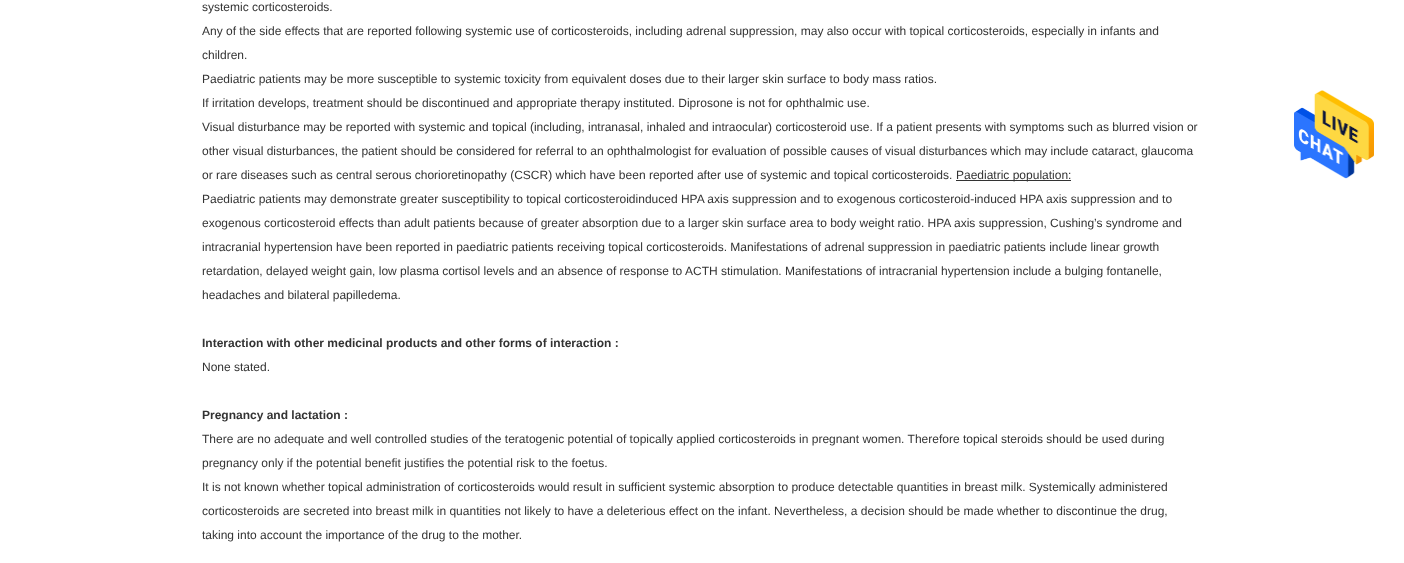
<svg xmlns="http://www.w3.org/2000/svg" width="1404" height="563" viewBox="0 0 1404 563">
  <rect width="100%" height="100%" fill="rgb(255,255,255)"/>
  <g font-family="Liberation Sans" font-size="12" fill="rgb(51,51,51)">
    <text x="202" y="11">systemic corticosteroids.</text>
    <text x="202" y="35">Any of the side effects that are reported following systemic use of corticosteroids, including adrenal suppression, may also occur with topical corticosteroids, especially in infants and</text>
    <text x="202" y="59">children.</text>
    <text x="202" y="83">Paediatric patients may be more susceptible to systemic toxicity from equivalent doses due to their larger skin surface to body mass ratios.</text>
    <text x="202" y="107">If irritation develops, treatment should be discontinued and appropriate therapy instituted. Diprosone is not for ophthalmic use.</text>
    <text x="202" y="131">Visual disturbance may be reported with systemic and topical (including, intranasal, inhaled and intraocular) corticosteroid use. If a patient presents with symptoms such as blurred vision or</text>
    <text x="202" y="155">other visual disturbances, the patient should be considered for referral to an ophthalmologist for evaluation of possible causes of visual disturbances which may include cataract, glaucoma</text>
    <text x="202" y="179">or rare diseases such as central serous chorioretinopathy (CSCR) which have been reported after use of systemic and topical corticosteroids.</text>
  </g>
  <rect x="956" y="180" width="115" height="1" fill="rgb(51,51,51)"/>
  <g font-family="Liberation Sans" font-size="12" fill="rgb(51,51,51)">
    <text x="956" y="179">Paediatric population:</text>
    <text x="202" y="203">Paediatric patients may demonstrate greater susceptibility to topical corticosteroidinduced HPA axis suppression and to exogenous corticosteroid-induced HPA axis suppression and to</text>
    <text x="202" y="227">exogenous corticosteroid effects than adult patients because of greater absorption due to a larger skin surface area to body weight ratio. HPA axis suppression, Cushing’s syndrome and</text>
    <text x="202" y="251">intracranial hypertension have been reported in paediatric patients receiving topical corticosteroids. Manifestations of adrenal suppression in paediatric patients include linear growth</text>
    <text x="202" y="275">retardation, delayed weight gain, low plasma cortisol levels and an absence of response to ACTH stimulation. Manifestations of intracranial hypertension include a bulging fontanelle,</text>
    <text x="202" y="299">headaches and bilateral papilledema.</text>
  </g>
  <text x="202" y="347" font-family="Liberation Sans" font-size="12" font-weight="bold" fill="rgb(51,51,51)">Interaction with other medicinal products and other forms of interaction :</text>
  <text x="202" y="371" font-family="Liberation Sans" font-size="12" fill="rgb(51,51,51)">None stated.</text>
  <text x="202" y="419" font-family="Liberation Sans" font-size="12" font-weight="bold" fill="rgb(51,51,51)">Pregnancy and lactation :</text>
  <g font-family="Liberation Sans" font-size="12" fill="rgb(51,51,51)">
    <text x="202" y="443">There are no adequate and well controlled studies of the teratogenic potential of topically applied corticosteroids in pregnant women. Therefore topical steroids should be used during</text>
    <text x="202" y="467">pregnancy only if the potential benefit justifies the potential risk to the foetus.</text>
    <text x="202" y="491">It is not known whether topical administration of corticosteroids would result in sufficient systemic absorption to produce detectable quantities in breast milk. Systemically administered</text>
    <text x="202" y="515">corticosteroids are secreted into breast milk in quantities not likely to have a deleterious effect on the infant. Nevertheless, a decision should be made whether to discontinue the drug,</text>
    <text x="202" y="539">taking into account the importance of the drug to the mother.</text>
  </g>
  <image x="1294" y="90" width="80" height="89" href="pic1.png"/>
</svg>
